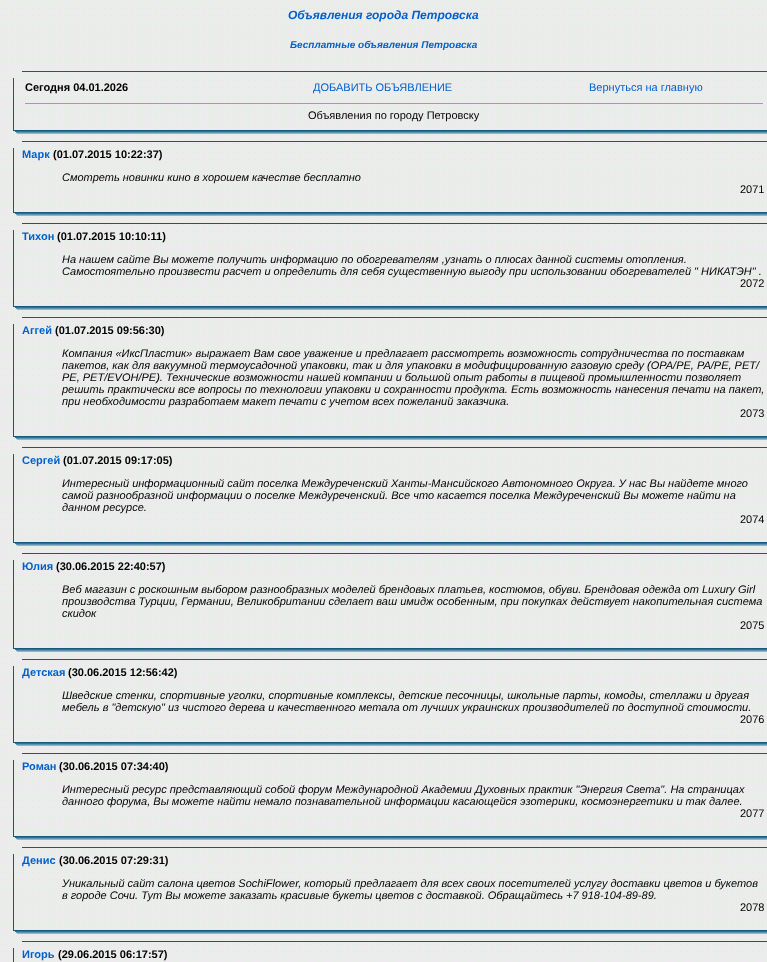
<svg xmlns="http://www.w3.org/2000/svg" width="767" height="962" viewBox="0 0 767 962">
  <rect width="100%" height="100%" fill="rgb(255,255,255)"/>
  <image x="0" y="0" width="767" height="962" href="pic1.png"/>
  <text x="288" y="19" font-family="Liberation Sans" font-size="12" font-weight="bold" font-style="italic" fill="rgb(0,97,204)">Объявления города Петровска</text>
  <text x="290" y="48" font-family="Liberation Sans" font-size="10" font-weight="bold" font-style="italic" fill="rgb(0,97,204)">Бесплатные объявления Петровска</text>
  <rect x="22" y="71" width="745" height="1" fill="rgb(19,89,128)"/>
  <rect x="13" y="78" width="1" height="46" fill="rgb(19,89,128)"/>
  <text x="25" y="91" font-family="Liberation Sans" font-size="11" font-weight="bold" fill="rgb(0,0,0)">Сегодня 04.01.2026</text>
  <g font-family="Liberation Sans" font-size="11" fill="rgb(0,97,204)">
    <text x="313" y="91">ДОБАВИТЬ ОБЪЯВЛЕНИЕ</text>
    <text x="589" y="91">Вернуться на главную</text>
  </g>
  <rect x="25" y="103" width="739" height="1" fill="rgb(159,159,159)"/>
  <rect x="763" y="103" width="1" height="1" fill="rgb(238,238,238)"/>
  <text x="308" y="119" font-family="Liberation Sans" font-size="11" fill="rgb(0,0,0)">Объявления по городу Петровску</text>
  <image x="13" y="124" width="9" height="10" href="pic2.png"/>
  <image x="22" y="130" width="743" height="4" href="pic3.png"/>
  <image x="765" y="130" width="2" height="4" href="pic4.png"/>
  <rect x="22" y="141" width="745" height="1" fill="rgb(19,89,128)"/>
  <rect x="13" y="148" width="1" height="58" fill="rgb(19,89,128)"/>
  <text x="22" y="158" font-family="Liberation Sans" font-size="11" font-weight="bold" fill="rgb(0,97,204)">Марк</text>
  <text x="53" y="158" font-family="Liberation Sans" font-size="11" font-weight="bold" fill="rgb(0,0,0)">(01.07.2015 10:22:37)</text>
  <text x="62" y="181" font-family="Liberation Sans" font-size="11" font-style="italic" fill="rgb(0,0,0)">Смотреть новинки кино в хорошем качестве бесплатно</text>
  <text x="740" y="193" font-family="Liberation Sans" font-size="11" fill="rgb(0,0,0)">2071</text>
  <image x="13" y="206" width="9" height="10" href="pic5.png"/>
  <image x="22" y="212" width="743" height="4" href="pic3.png"/>
  <image x="765" y="212" width="2" height="4" href="pic4.png"/>
  <rect x="22" y="223" width="745" height="1" fill="rgb(19,89,128)"/>
  <rect x="13" y="230" width="1" height="70" fill="rgb(19,89,128)"/>
  <text x="22" y="240" font-family="Liberation Sans" font-size="11" font-weight="bold" fill="rgb(0,97,204)">Тихон</text>
  <text x="57" y="240" font-family="Liberation Sans" font-size="11" font-weight="bold" fill="rgb(0,0,0)">(01.07.2015 10:10:11)</text>
  <g font-family="Liberation Sans" font-size="11" font-style="italic" fill="rgb(0,0,0)">
    <text>
      <tspan x="62" y="263">На нашем сайте Вы можете получить информацию по обогревателям ,узнать о плюсах данной системы отопления.</tspan>
      <tspan x="62" y="275">Самостоятельно произвести расчет и определить для себя существенную выгоду при использовании обогревателей " НИКАТЭН" .</tspan>
    </text>
  </g>
  <text x="740" y="287" font-family="Liberation Sans" font-size="11" fill="rgb(0,0,0)">2072</text>
  <image x="13" y="300" width="9" height="10" href="pic6.png"/>
  <image x="22" y="306" width="743" height="4" href="pic3.png"/>
  <image x="765" y="306" width="2" height="4" href="pic4.png"/>
  <rect x="22" y="317" width="745" height="1" fill="rgb(19,89,128)"/>
  <rect x="13" y="324" width="1" height="106" fill="rgb(19,89,128)"/>
  <text x="22" y="334" font-family="Liberation Sans" font-size="11" font-weight="bold" fill="rgb(0,97,204)">Аггей</text>
  <text x="55" y="334" font-family="Liberation Sans" font-size="11" font-weight="bold" fill="rgb(0,0,0)">(01.07.2015 09:56:30)</text>
  <g font-family="Liberation Sans" font-size="11" font-style="italic" fill="rgb(0,0,0)">
    <text>
      <tspan x="62" y="357">Компания «ИксПластик» выражает Вам свое уважение и предлагает рассмотреть возможность сотрудничества по поставкам</tspan>
      <tspan x="62" y="369">пакетов, как для вакуумной термоусадочной упаковки, так и для упаковки в модифицированную газовую среду (ОРА/РЕ, РА/РЕ, РЕТ/</tspan>
      <tspan x="62" y="381">РЕ, PET/EVOH/РЕ). Технические возможности нашей компании и большой опыт работы в пищевой промышленности позволяет</tspan>
      <tspan x="62" y="393">решить практически все вопросы по технологии упаковки и сохранности продукта. Есть возможность нанесения печати на пакет,</tspan>
      <tspan x="62" y="405">при необходимости разработаем макет печати с учетом всех пожеланий заказчика.</tspan>
    </text>
  </g>
  <text x="740" y="417" font-family="Liberation Sans" font-size="11" fill="rgb(0,0,0)">2073</text>
  <image x="13" y="430" width="9" height="10" href="pic2.png"/>
  <image x="22" y="436" width="743" height="4" href="pic3.png"/>
  <image x="765" y="436" width="2" height="4" href="pic4.png"/>
  <rect x="22" y="447" width="745" height="1" fill="rgb(19,89,128)"/>
  <rect x="13" y="454" width="1" height="82" fill="rgb(19,89,128)"/>
  <text x="22" y="464" font-family="Liberation Sans" font-size="11" font-weight="bold" fill="rgb(0,97,204)">Сергей</text>
  <text x="63" y="464" font-family="Liberation Sans" font-size="11" font-weight="bold" fill="rgb(0,0,0)">(01.07.2015 09:17:05)</text>
  <g font-family="Liberation Sans" font-size="11" font-style="italic" fill="rgb(0,0,0)">
    <text>
      <tspan x="62" y="487">Интересный информационный сайт поселка Междуреченский Ханты-Мансийского Автономного Округа. У нас Вы найдете много</tspan>
      <tspan x="62" y="499">самой разнообразной информации о поселке Междуреченский. Все что касается поселка Междуреченский Вы можете найти на</tspan>
      <tspan x="62" y="511">данном ресурсе.</tspan>
    </text>
  </g>
  <text x="740" y="523" font-family="Liberation Sans" font-size="11" fill="rgb(0,0,0)">2074</text>
  <image x="13" y="536" width="9" height="10" href="pic7.png"/>
  <image x="22" y="542" width="743" height="4" href="pic3.png"/>
  <image x="765" y="542" width="2" height="4" href="pic4.png"/>
  <rect x="22" y="553" width="745" height="1" fill="rgb(19,89,128)"/>
  <rect x="13" y="560" width="1" height="82" fill="rgb(19,89,128)"/>
  <text x="22" y="570" font-family="Liberation Sans" font-size="11" font-weight="bold" fill="rgb(0,97,204)">Юлия</text>
  <text x="56" y="570" font-family="Liberation Sans" font-size="11" font-weight="bold" fill="rgb(0,0,0)">(30.06.2015 22:40:57)</text>
  <g font-family="Liberation Sans" font-size="11" font-style="italic" fill="rgb(0,0,0)">
    <text>
      <tspan x="62" y="593">Веб магазин с роскошным выбором разнообразных моделей брендовых платьев, костюмов, обуви. Брендовая одежда от Luxury Girl</tspan>
      <tspan x="62" y="605">производства Турции, Германии, Великобритании сделает ваш имидж особенным, при покупках действует накопительная система</tspan>
      <tspan x="62" y="617">скидок</tspan>
    </text>
  </g>
  <text x="740" y="629" font-family="Liberation Sans" font-size="11" fill="rgb(0,0,0)">2075</text>
  <image x="13" y="642" width="9" height="10" href="pic6.png"/>
  <image x="22" y="648" width="743" height="4" href="pic3.png"/>
  <image x="765" y="648" width="2" height="4" href="pic4.png"/>
  <rect x="22" y="659" width="745" height="1" fill="rgb(19,89,128)"/>
  <rect x="13" y="666" width="1" height="70" fill="rgb(19,89,128)"/>
  <text x="22" y="676" font-family="Liberation Sans" font-size="11" font-weight="bold" fill="rgb(0,97,204)">Детская</text>
  <text x="68" y="676" font-family="Liberation Sans" font-size="11" font-weight="bold" fill="rgb(0,0,0)">(30.06.2015 12:56:42)</text>
  <g font-family="Liberation Sans" font-size="11" font-style="italic" fill="rgb(0,0,0)">
    <text>
      <tspan x="62" y="699">Шведские стенки, спортивные уголки, спортивные комплексы, детские песочницы, школьные парты, комоды, стеллажи и другая</tspan>
      <tspan x="62" y="711">мебель в "детскую" из чистого дерева и качественного метала от лучших украинских производителей по доступной стоимости.</tspan>
    </text>
  </g>
  <text x="740" y="723" font-family="Liberation Sans" font-size="11" fill="rgb(0,0,0)">2076</text>
  <image x="13" y="736" width="9" height="10" href="pic2.png"/>
  <image x="22" y="742" width="743" height="4" href="pic3.png"/>
  <image x="765" y="742" width="2" height="4" href="pic4.png"/>
  <rect x="22" y="753" width="745" height="1" fill="rgb(19,89,128)"/>
  <rect x="13" y="760" width="1" height="70" fill="rgb(19,89,128)"/>
  <text x="22" y="770" font-family="Liberation Sans" font-size="11" font-weight="bold" fill="rgb(0,97,204)">Роман</text>
  <text x="59" y="770" font-family="Liberation Sans" font-size="11" font-weight="bold" fill="rgb(0,0,0)">(30.06.2015 07:34:40)</text>
  <g font-family="Liberation Sans" font-size="11" font-style="italic" fill="rgb(0,0,0)">
    <text>
      <tspan x="62" y="793">Интересный ресурс представляющий собой форум Международной Академии Духовных практик "Энергия Света". На страницах</tspan>
      <tspan x="62" y="805">данного форума, Вы можете найти немало познавательной информации касающейся эзотерики, космоэнергетики и так далее.</tspan>
    </text>
  </g>
  <text x="740" y="817" font-family="Liberation Sans" font-size="11" fill="rgb(0,0,0)">2077</text>
  <image x="13" y="830" width="9" height="10" href="pic8.png"/>
  <image x="22" y="836" width="743" height="4" href="pic3.png"/>
  <image x="765" y="836" width="2" height="4" href="pic4.png"/>
  <rect x="22" y="847" width="745" height="1" fill="rgb(19,89,128)"/>
  <rect x="13" y="854" width="1" height="70" fill="rgb(19,89,128)"/>
  <text x="22" y="864" font-family="Liberation Sans" font-size="11" font-weight="bold" fill="rgb(0,97,204)">Денис</text>
  <text x="59" y="864" font-family="Liberation Sans" font-size="11" font-weight="bold" fill="rgb(0,0,0)">(30.06.2015 07:29:31)</text>
  <g font-family="Liberation Sans" font-size="11" font-style="italic" fill="rgb(0,0,0)">
    <text>
      <tspan x="62" y="887">Уникальный сайт салона цветов SochiFlower, который предлагает для всех своих посетителей услугу доставки цветов и букетов</tspan>
      <tspan x="62" y="899">в городе Сочи. Тут Вы можете заказать красивые букеты цветов с доставкой. Обращайтесь +7 918-104-89-89.</tspan>
    </text>
  </g>
  <text x="740" y="911" font-family="Liberation Sans" font-size="11" fill="rgb(0,0,0)">2078</text>
  <image x="13" y="924" width="9" height="10" href="pic9.png"/>
  <image x="22" y="930" width="743" height="4" href="pic3.png"/>
  <image x="765" y="930" width="2" height="4" href="pic4.png"/>
  <rect x="22" y="941" width="745" height="1" fill="rgb(19,89,128)"/>
  <rect x="13" y="948" width="1" height="14" fill="rgb(19,89,128)"/>
  <text x="22" y="958" font-family="Liberation Sans" font-size="11" font-weight="bold" fill="rgb(0,97,204)">Игорь</text>
  <text x="58" y="958" font-family="Liberation Sans" font-size="11" font-weight="bold" fill="rgb(0,0,0)">(29.06.2015 06:17:57)</text>
</svg>
